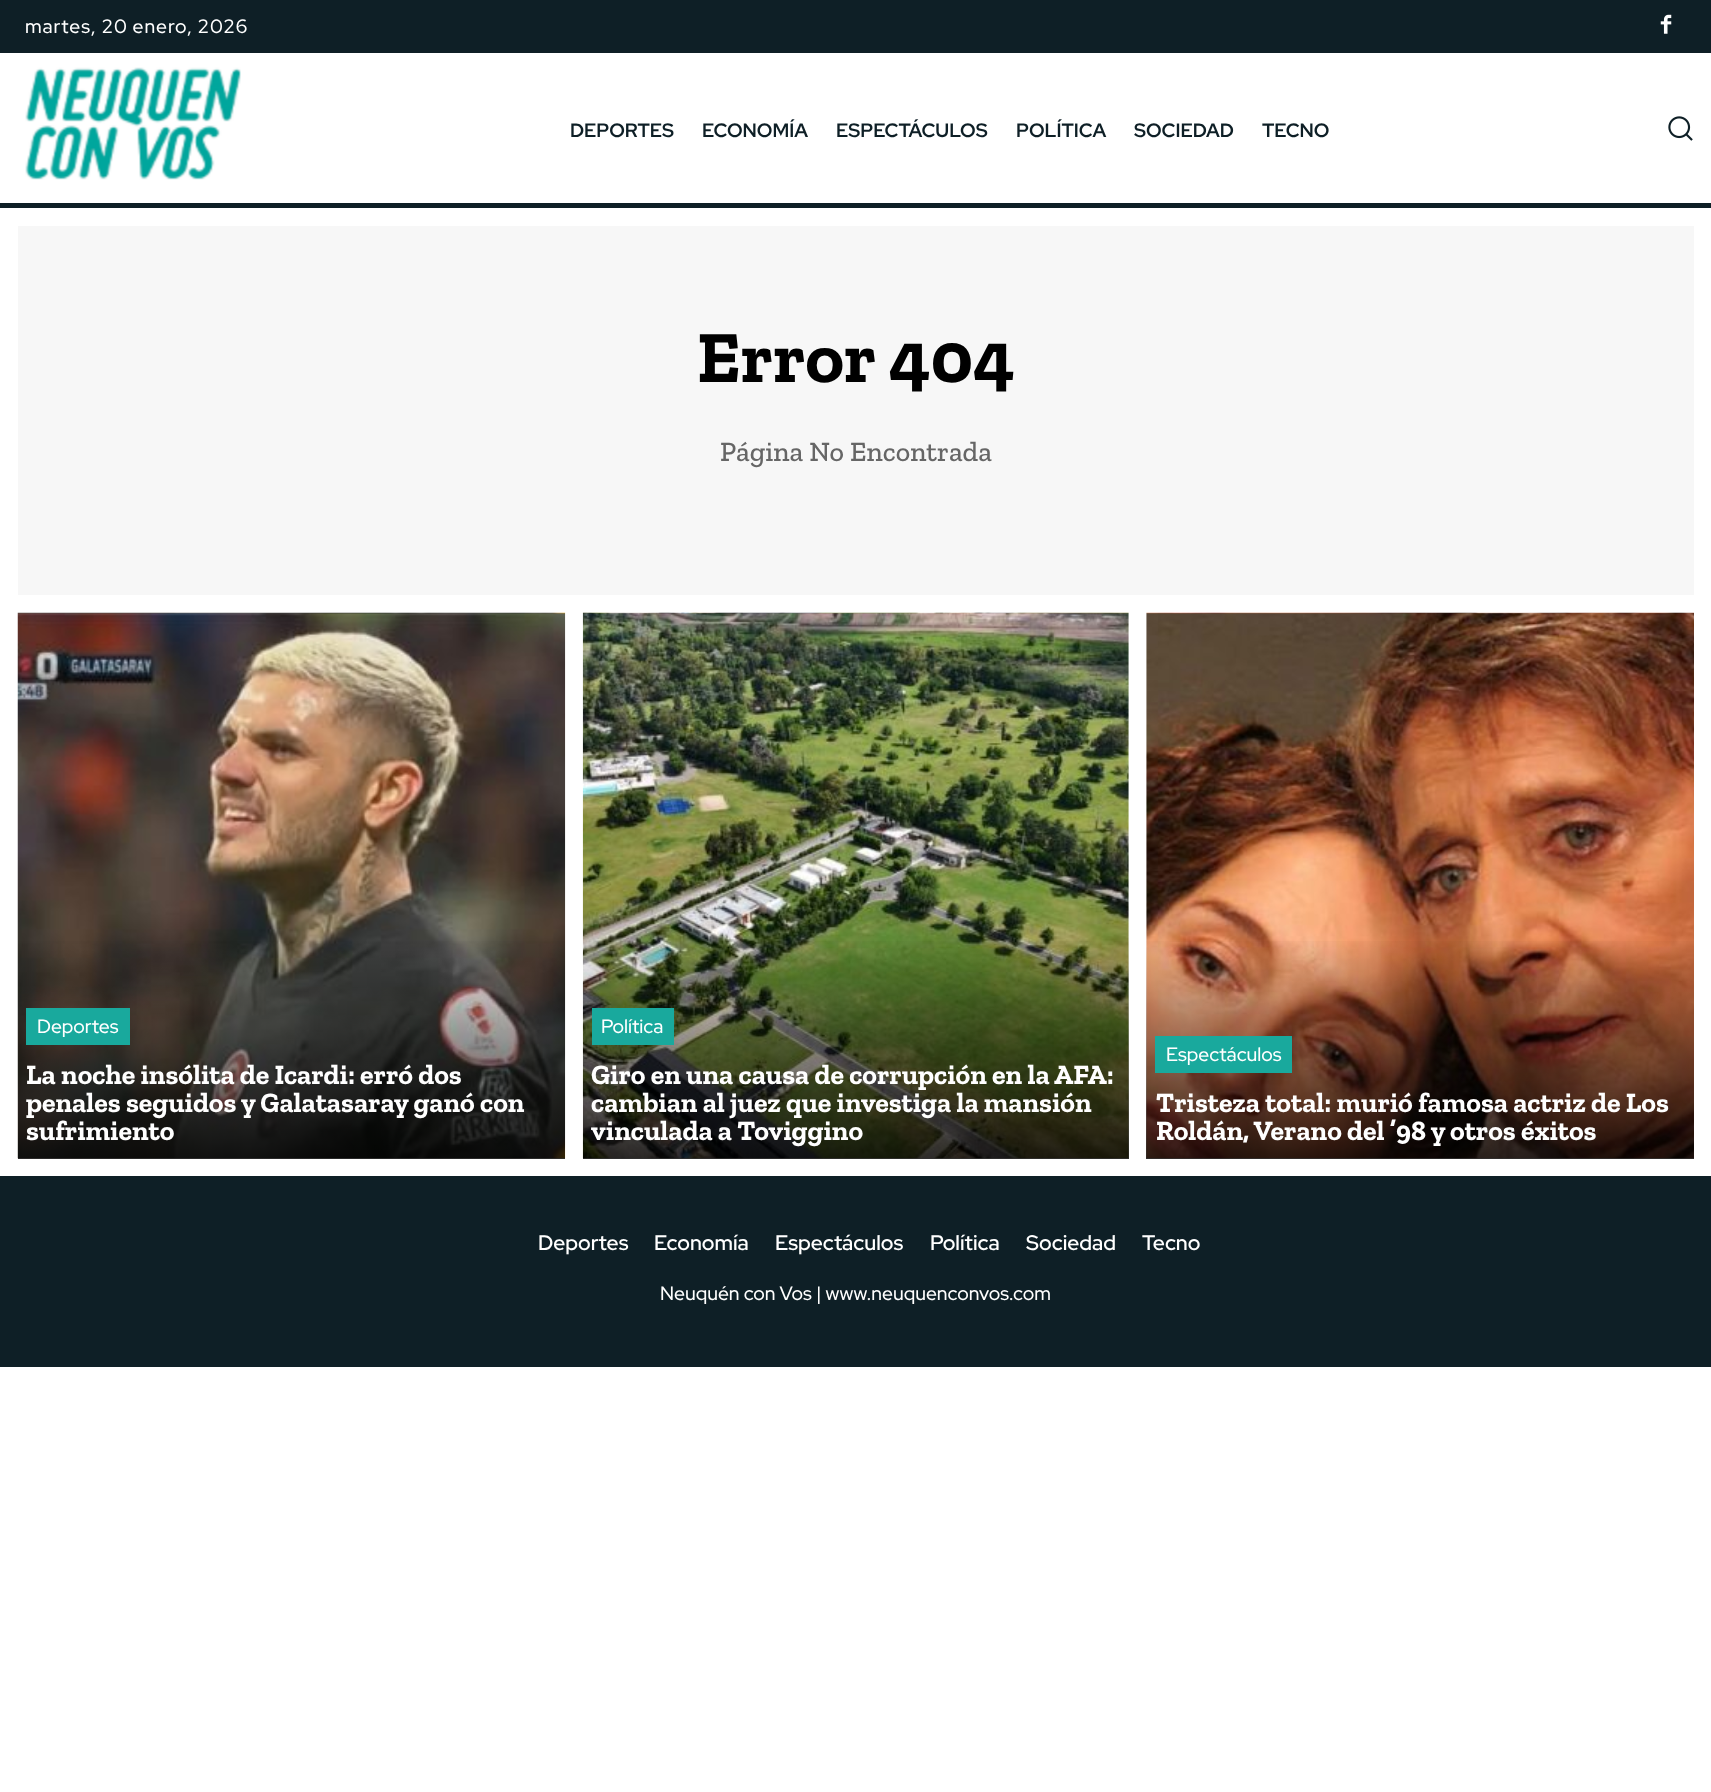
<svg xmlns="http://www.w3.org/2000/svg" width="1711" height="1792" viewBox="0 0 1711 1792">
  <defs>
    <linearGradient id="g1" gradientUnits="userSpaceOnUse" x1="291" y1="1159" x2="291" y2="613"><stop offset="0" stop-color="rgb(0,0,0)" stop-opacity="0.8"/><stop offset="0.41" stop-color="rgb(0,0,0)" stop-opacity="0"/><stop offset="1" stop-color="rgb(0,0,0)" stop-opacity="0"/></linearGradient>
    <linearGradient id="g2" gradientUnits="userSpaceOnUse" x1="856" y1="1159" x2="856" y2="613"><stop offset="0" stop-color="rgb(0,0,0)" stop-opacity="0.8"/><stop offset="0.41" stop-color="rgb(0,0,0)" stop-opacity="0"/><stop offset="1" stop-color="rgb(0,0,0)" stop-opacity="0"/></linearGradient>
    <linearGradient id="g3" gradientUnits="userSpaceOnUse" x1="1420" y1="1159" x2="1420" y2="613"><stop offset="0" stop-color="rgb(0,0,0)" stop-opacity="0.8"/><stop offset="0.41" stop-color="rgb(0,0,0)" stop-opacity="0"/><stop offset="1" stop-color="rgb(0,0,0)" stop-opacity="0"/></linearGradient>
  </defs>
  <rect width="100%" height="100%" fill="rgb(255,255,255)"/>
  <rect x="0" y="0" width="1711" height="53" fill="rgb(14,31,38)"/>
  <text x="25" y="33" font-family="Red Hat Display" font-size="19.25" font-weight="500" letter-spacing="0.9" fill="rgb(255,255,255)">martes, 20 enero, 2026</text>
  <image x="1660" y="14" width="12" height="20" href="pic1.png"/>
  <image x="25" y="67" width="216" height="113" href="pic2.png"/>
  <g font-family="Red Hat Display" font-size="19.25" font-weight="bold" fill="rgb(14,31,38)">
    <text x="570" y="137">DEPORTES</text>
    <text x="702" y="137">ECONOMÍA</text>
    <text x="836" y="137">ESPECTÁCULOS</text>
    <text x="1016" y="137">POLÍTICA</text>
    <text x="1134" y="137">SOCIEDAD</text>
    <text x="1262" y="137">TECNO</text>
  </g>
  <image x="1668" y="116" width="25" height="25" href="pic3.png"/>
  <rect x="0" y="203" width="1711" height="5" fill="rgb(14,31,38)"/>
  <rect x="18" y="226" width="1676" height="369" fill="rgb(247,247,247)"/>
  <text x="697" y="382" font-family="Zilla Slab" font-size="73.5" font-weight="bold" fill="rgb(0,0,0)">Error 404</text>
  <text x="720" y="461" font-family="Zilla Slab" font-size="28" font-weight="500" fill="rgb(102,102,102)">Página No Encontrada</text>
  <image x="17" y="612" width="549" height="547" href="pic4.png"/>
  <rect x="18" y="941" width="547" height="218" fill="url(#g1)"/>
  <rect x="26" y="1008" width="104" height="37" fill="rgb(25,169,157)"/>
  <text x="37" y="1033" font-family="Red Hat Display" font-size="19.25" font-weight="500" fill="rgb(255,255,255)">Deportes</text>
  <g font-family="Zilla Slab" font-size="28" font-weight="bold" fill="rgb(255,255,255)">
    <text>
      <tspan x="26" y="1084">La noche insólita de Icardi: erró dos</tspan>
      <tspan x="26" y="1112">penales seguidos y Galatasaray ganó con</tspan>
      <tspan x="26" y="1140">sufrimiento</tspan>
    </text>
  </g>
  <image x="582" y="612" width="547" height="547" href="pic5.png"/>
  <rect x="583" y="941" width="546" height="218" fill="url(#g2)"/>
  <rect x="592" y="1008" width="82" height="37" fill="rgb(25,169,157)"/>
  <text x="601" y="1033" font-family="Red Hat Display" font-size="19.25" font-weight="500" fill="rgb(255,255,255)">Política</text>
  <g font-family="Zilla Slab" font-size="28" font-weight="bold" fill="rgb(255,255,255)">
    <text>
      <tspan x="591" y="1084">Giro en una causa de corrupción en la AFA:</tspan>
      <tspan x="591" y="1112">cambian al juez que investiga la mansión</tspan>
      <tspan x="591" y="1140">vinculada a Toviggino</tspan>
    </text>
  </g>
  <image x="1146" y="612" width="548" height="547" href="pic6.png"/>
  <rect x="1146" y="941" width="548" height="218" fill="url(#g3)"/>
  <rect x="1155" y="1036" width="137" height="37" fill="rgb(25,169,157)"/>
  <text x="1166" y="1061" font-family="Red Hat Display" font-size="19.25" font-weight="500" fill="rgb(255,255,255)">Espectáculos</text>
  <g font-family="Zilla Slab" font-size="28" font-weight="bold" fill="rgb(255,255,255)">
    <text>
      <tspan x="1156" y="1112">Tristeza total: murió famosa actriz de Los</tspan>
      <tspan x="1156" y="1140">Roldán, Verano del ’98 y otros éxitos</tspan>
    </text>
  </g>
  <rect x="0" y="1176" width="1711" height="191" fill="rgb(14,31,38)"/>
  <g font-family="Red Hat Display" font-size="21" font-weight="600" fill="rgb(255,255,255)">
    <text x="538" y="1250">Deportes</text>
    <text x="654" y="1250">Economía</text>
    <text x="775" y="1250">Espectáculos</text>
    <text x="930" y="1250">Política</text>
    <text x="1026" y="1250">Sociedad</text>
    <text x="1142" y="1250">Tecno</text>
  </g>
  <text x="660" y="1300" font-family="Red Hat Display" font-size="19.25" font-weight="500" fill="rgb(255,255,255)">Neuquén con Vos | www.neuquenconvos.com</text>
</svg>
